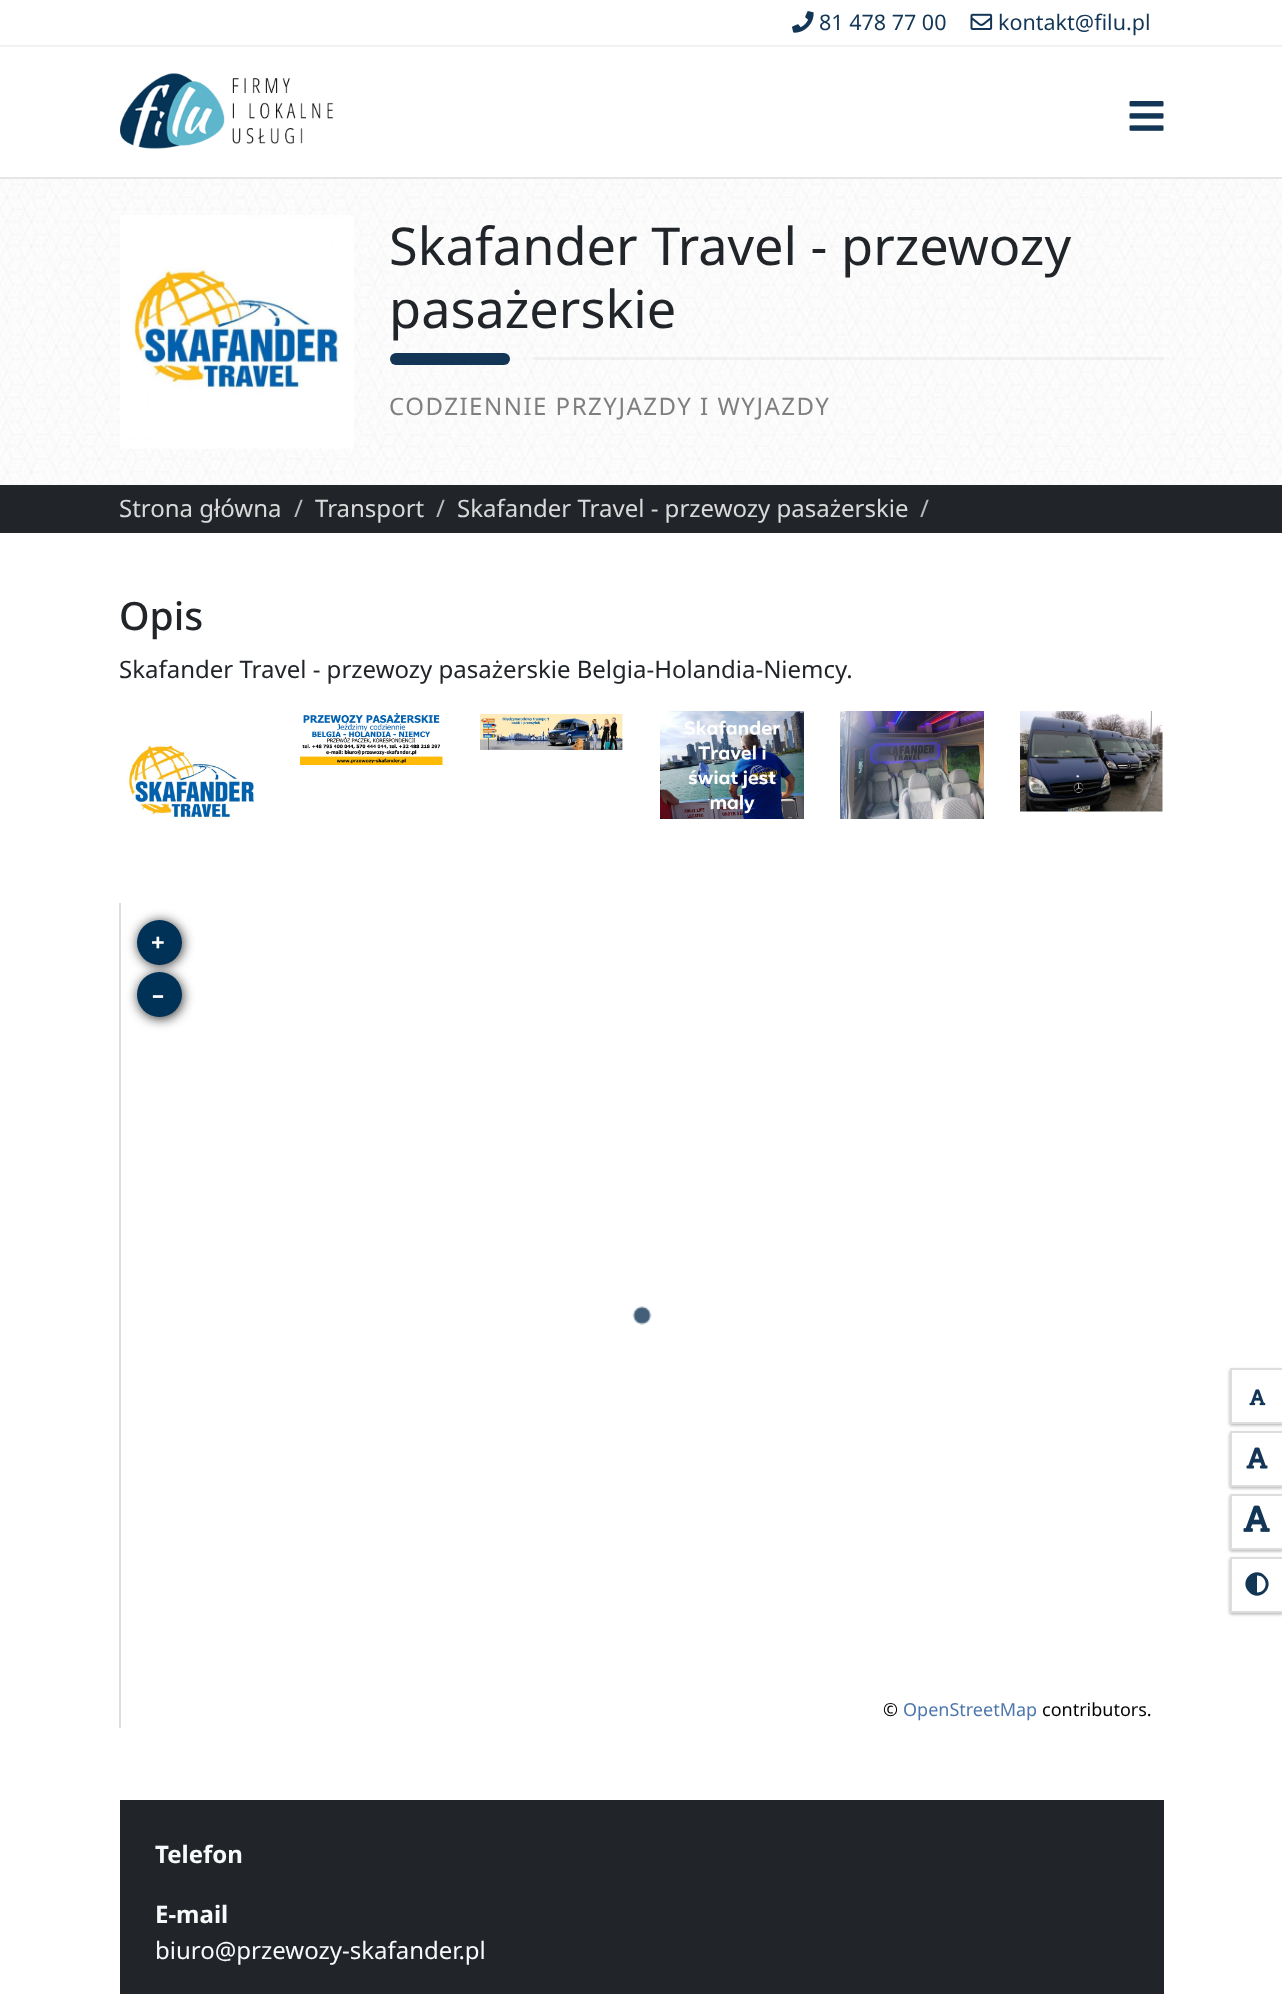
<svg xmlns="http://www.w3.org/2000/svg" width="1282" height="1994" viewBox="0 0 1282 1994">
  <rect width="100%" height="100%" fill="rgb(255,255,255)"/>
  <rect x="0" y="45" width="1282" height="2" fill="rgb(242,242,242)"/>
  <image x="792" y="11" width="22" height="22" href="pic1.png"/>
  <text x="819" y="30" font-family="Noto Sans" font-size="21.5" fill="rgb(19,54,86)">81 478 77 00</text>
  <image x="970" y="13" width="23" height="17" href="pic2.png"/>
  <text x="998" y="30" font-family="Noto Sans" font-size="21.5" fill="rgb(19,54,86)">kontakt@filu.pl</text>
  <rect x="0" y="177" width="1282" height="2" fill="rgb(230,230,230)"/>
  <image x="120" y="73" width="213" height="76" href="pic3.png"/>
  <image x="1129" y="101" width="35" height="30" href="pic4.png"/>
  <rect x="0" y="484" width="1282" height="1" fill="rgb(248,249,250)"/>
  <image x="0" y="179" width="1282" height="305" href="pic5.png"/>
  <image x="120" y="215" width="234" height="234" href="pic6.png"/>
  <g font-family="Noto Sans" font-size="52.25" fill="rgb(33,37,41)">
    <text>
      <tspan x="389" y="265">Skafander Travel - przewozy</tspan>
      <tspan x="389" y="328">pasażerskie</tspan>
    </text>
  </g>
  <rect x="390" y="353" width="120" height="12" rx="6" fill="rgb(19,54,86)"/>
  <rect x="533" y="357" width="631" height="3" fill="rgba(204,204,204,0.2)"/>
  <text x="389" y="415" font-family="Noto Sans" font-size="24" letter-spacing="1.5" fill="rgb(127,127,127)">CODZIENNIE PRZYJAZDY I WYJAZDY</text>
  <rect x="0" y="485" width="1282" height="48" fill="rgb(33,37,41)"/>
  <text x="119" y="517" font-family="Noto Sans" font-size="24" fill="rgb(218,218,218)">Strona główna</text>
  <text x="294" y="517" font-family="Noto Sans" font-size="24" fill="rgb(187,187,187)">/</text>
  <text x="315" y="517" font-family="Noto Sans" font-size="24" fill="rgb(218,218,218)">Transport</text>
  <text x="436" y="517" font-family="Noto Sans" font-size="24" fill="rgb(187,187,187)">/</text>
  <text x="457" y="517" font-family="Noto Sans" font-size="24" fill="rgb(218,218,218)">Skafander Travel - przewozy pasażerskie</text>
  <text x="920" y="517" font-family="Noto Sans" font-size="24" fill="rgb(187,187,187)">/</text>
  <text x="119" y="630" font-family="Noto Sans" font-size="39" font-weight="500" fill="rgb(33,37,41)">Opis</text>
  <text x="119" y="678" font-family="Noto Sans" font-size="24" fill="rgb(33,37,41)">Skafander Travel - przewozy pasażerskie Belgia-Holandia-Niemcy.</text>
  <image x="300" y="713" width="143" height="52" href="pic7.png"/>
  <image x="480" y="714" width="143" height="36" href="pic8.png"/>
  <image x="660" y="711" width="144" height="108" href="pic9.png"/>
  <image x="840" y="711" width="144" height="108" href="pic10.png"/>
  <image x="1020" y="711" width="143" height="101" href="pic11.png"/>
  <image x="127" y="745" width="128" height="74" href="pic12.png"/>
  <rect x="138" y="921" width="45" height="45" rx="22.5" fill="rgba(0,0,0,0.8)" filter="blur(6px)"/>
  <circle cx="159.5" cy="942.5" r="22.5" fill="rgb(0,49,86)"/>
  <rect x="138" y="974" width="45" height="45" rx="22.5" fill="rgba(0,0,0,0.8)" filter="blur(6px)"/>
  <rect x="119" y="903" width="2" height="825" fill="rgb(221,221,221)"/>
  <text x="151" y="951" font-family="Noto Sans" font-size="24" font-weight="bold" fill="rgb(255,255,255)">+</text>
  <circle cx="159.5" cy="994.5" r="22.5" fill="rgb(0,49,86)"/>
  <text x="152" y="1003" font-family="Noto Sans" font-size="24" font-weight="bold" fill="rgb(255,255,255)">–</text>
  <text x="883" y="1716" font-family="Noto Sans" font-size="18" fill="rgb(0,0,0)">©</text>
  <text x="903" y="1716" font-family="Noto Sans" font-size="18" fill="rgb(77,119,172)">OpenStreetMap</text>
  <text x="1042" y="1716" font-family="Noto Sans" font-size="18" fill="rgb(0,0,0)">contributors.</text>
  <image x="632" y="1306" width="20" height="19" href="pic13.png"/>
  <rect x="120" y="1800" width="1044" height="194" fill="rgb(33,37,41)"/>
  <g font-family="Noto Sans" font-size="24" font-weight="bold" fill="rgb(248,249,250)">
    <text x="155" y="1863">Telefon</text>
    <text x="155" y="1923">E-mail</text>
  </g>
  <text x="155" y="1959" font-family="Noto Sans" font-size="24" fill="rgb(248,249,250)">biuro@przewozy-skafander.pl</text>
  <rect x="1230" y="1370" width="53" height="55" fill="rgba(0,0,0,0.24)" filter="blur(1.5px)"/>
  <rect x="1230" y="1370" width="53" height="55" fill="rgba(0,0,0,0.12)" filter="blur(2px)"/>
  <rect x="1232" y="1370" width="50" height="52" fill="rgb(255,255,255)"/>
  <rect x="1230" y="1368" width="52" height="2" fill="rgb(221,221,221)"/>
  <rect x="1230" y="1422" width="52" height="2" fill="rgb(221,221,221)"/>
  <rect x="1230" y="1368" width="2" height="56" fill="rgb(221,221,221)"/>
  <image x="1249" y="1389" width="17" height="17" href="pic14.png"/>
  <rect x="1230" y="1433" width="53" height="55" fill="rgba(0,0,0,0.24)" filter="blur(1.5px)"/>
  <rect x="1230" y="1433" width="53" height="55" fill="rgba(0,0,0,0.12)" filter="blur(2px)"/>
  <rect x="1232" y="1433" width="50" height="52" fill="rgb(255,255,255)"/>
  <rect x="1230" y="1431" width="52" height="2" fill="rgb(221,221,221)"/>
  <rect x="1230" y="1485" width="52" height="2" fill="rgb(221,221,221)"/>
  <rect x="1230" y="1431" width="2" height="56" fill="rgb(221,221,221)"/>
  <image x="1246" y="1447" width="22" height="22" href="pic15.png"/>
  <rect x="1230" y="1496" width="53" height="55" fill="rgba(0,0,0,0.24)" filter="blur(1.5px)"/>
  <rect x="1230" y="1496" width="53" height="55" fill="rgba(0,0,0,0.12)" filter="blur(2px)"/>
  <rect x="1232" y="1496" width="50" height="52" fill="rgb(255,255,255)"/>
  <rect x="1230" y="1494" width="52" height="2" fill="rgb(221,221,221)"/>
  <rect x="1230" y="1548" width="52" height="2" fill="rgb(221,221,221)"/>
  <rect x="1230" y="1494" width="2" height="56" fill="rgb(221,221,221)"/>
  <image x="1243" y="1505" width="27" height="27" href="pic16.png"/>
  <rect x="1230" y="1559" width="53" height="55" fill="rgba(0,0,0,0.24)" filter="blur(1.5px)"/>
  <rect x="1230" y="1559" width="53" height="55" fill="rgba(0,0,0,0.12)" filter="blur(2px)"/>
  <rect x="1232" y="1559" width="50" height="52" fill="rgb(255,255,255)"/>
  <rect x="1230" y="1557" width="52" height="2" fill="rgb(221,221,221)"/>
  <rect x="1230" y="1611" width="52" height="2" fill="rgb(221,221,221)"/>
  <rect x="1230" y="1557" width="2" height="56" fill="rgb(221,221,221)"/>
  <path d="M1249 1592C1238 1581.5 1254.5 1565 1265 1576C1276 1586.5 1259.5 1603 1249 1592ZM1257 1592.5C1268.5 1592.5 1268.5 1575.5 1257 1575.5Z" fill="rgb(19,54,86)"/>
</svg>
